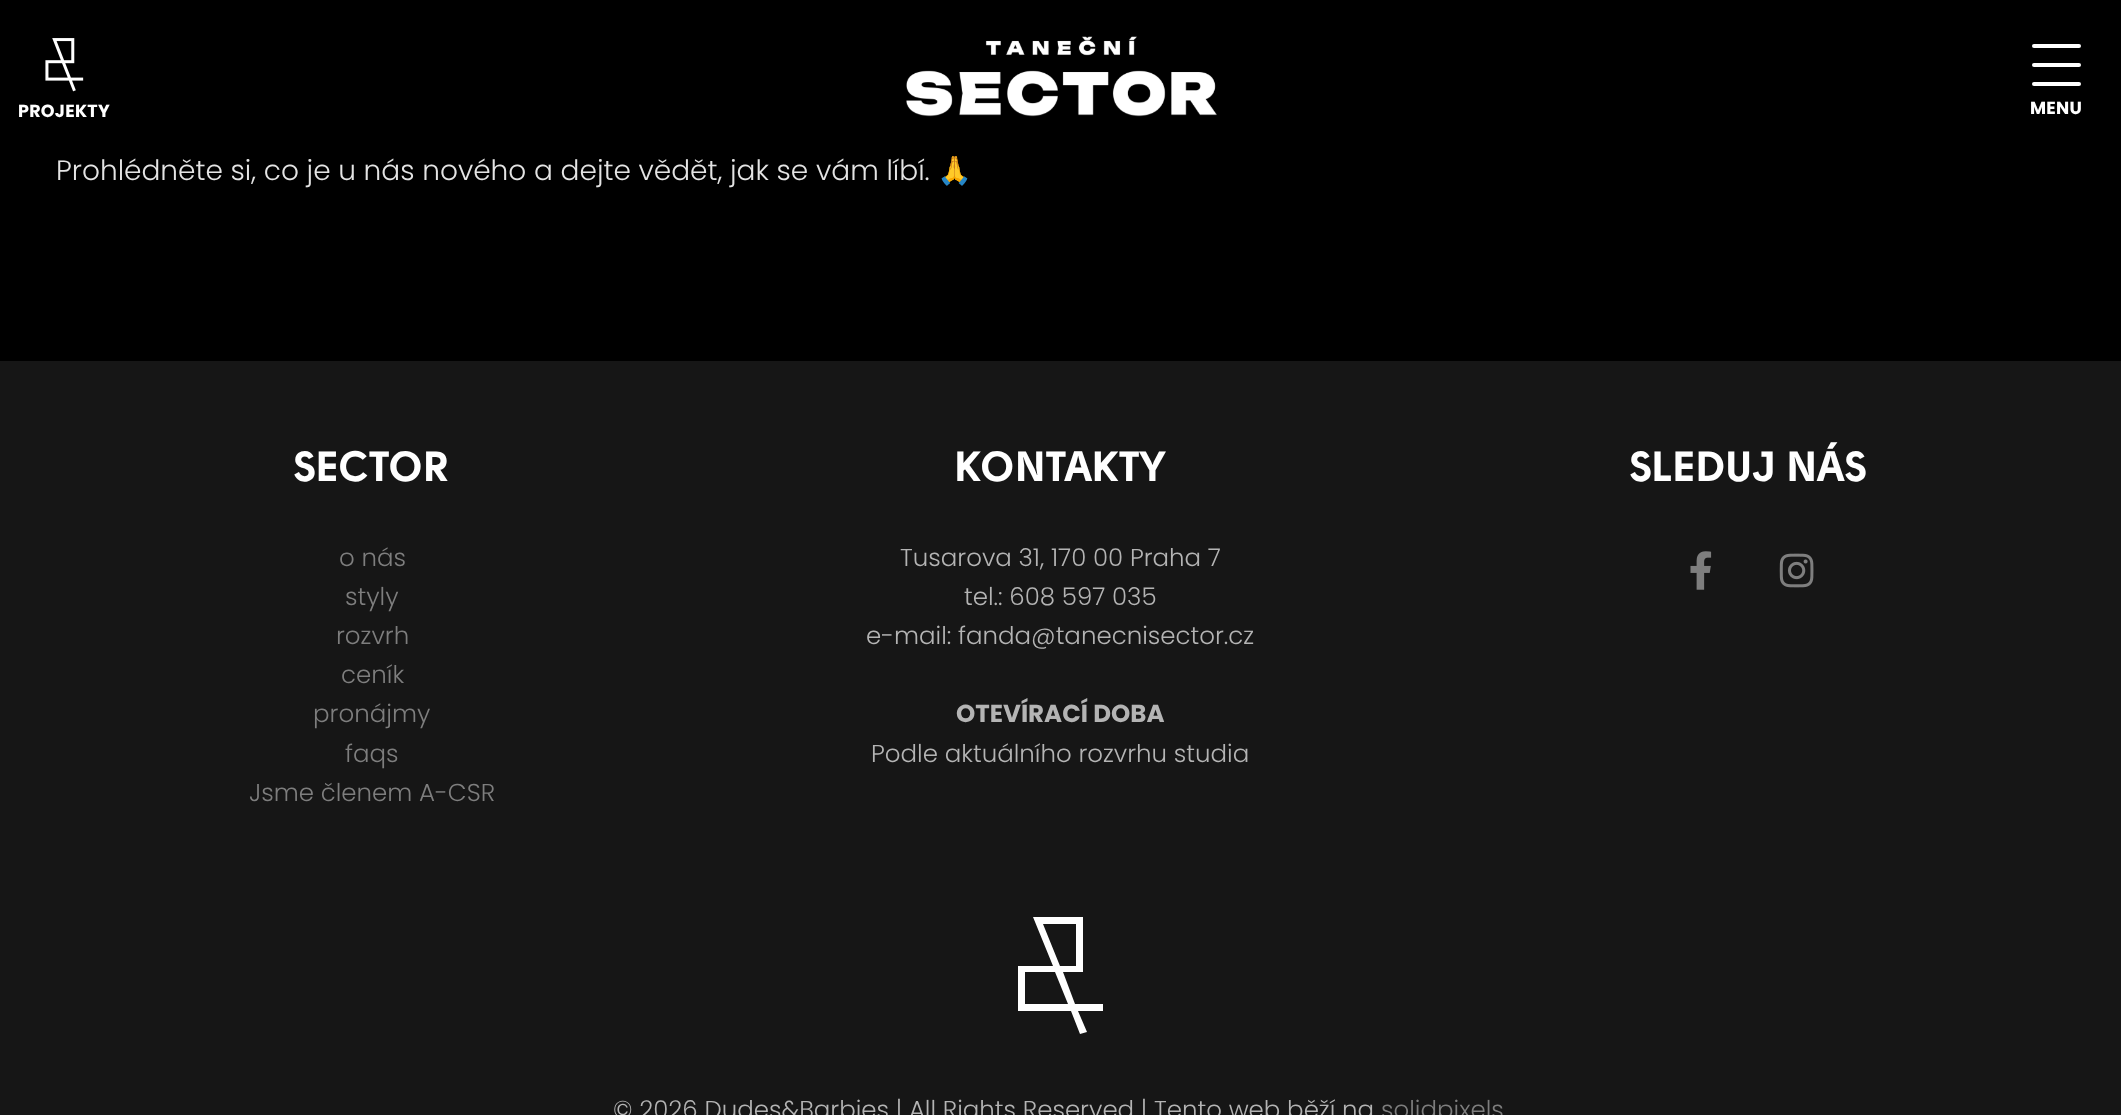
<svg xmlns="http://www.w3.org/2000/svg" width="2121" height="1115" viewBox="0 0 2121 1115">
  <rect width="100%" height="100%" fill="rgb(0,0,0)"/>
  <image x="45" y="38" width="39" height="54" href="pic1.png"/>
  <text x="18" y="117" font-family="Poppins" font-size="17.5" font-weight="bold" letter-spacing="0.25" fill="rgb(255,255,255)">PROJEKTY</text>
  <image x="906" y="36" width="311" height="81" href="pic2.png"/>
  <rect x="2032" y="44" width="49" height="4" rx="2" fill="rgb(255,255,255)"/>
  <rect x="2032" y="63" width="49" height="4" rx="2" fill="rgb(255,255,255)"/>
  <rect x="2032" y="82" width="49" height="4" rx="2" fill="rgb(255,255,255)"/>
  <text x="2030" y="114" font-family="Poppins" font-size="17.5" font-weight="bold" letter-spacing="0.25" fill="rgb(255,255,255)">MENU</text>
  <text x="56" y="180" font-family="Poppins" font-size="28" font-weight="300" fill="rgb(228,228,228)">Prohlédněte si, co je u nás nového a dejte vědět, jak se vám líbí.</text>
  <text x="937" y="180" font-family="Noto Color Emoji" font-size="28" fill="rgb(228,228,228)">🙏</text>
  <rect x="0" y="361" width="2121" height="754" fill="rgb(22,22,22)"/>
  <text x="294" y="481" font-family="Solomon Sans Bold" font-size="42" font-weight="bold" fill="rgb(255,255,255)">SECTOR</text>
  <g font-family="Poppins" font-size="24.5" font-weight="300" fill="rgb(126,126,126)">
    <text x="339" y="566">o nás</text>
    <text x="345" y="605">styly</text>
    <text x="336" y="644">rozvrh</text>
    <text x="341" y="683">ceník</text>
    <text x="313" y="722">pronájmy</text>
    <text x="345" y="762">faqs</text>
    <text x="249" y="801">Jsme členem A-CSR</text>
  </g>
  <text x="955" y="481" font-family="Solomon Sans Bold" font-size="42" font-weight="bold" fill="rgb(255,255,255)">KONTAKTY</text>
  <g font-family="Poppins" font-size="24.5" font-weight="300" fill="rgb(180,180,180)">
    <text x="900" y="566">Tusarova 31, 170 00 Praha 7</text>
    <text x="964" y="605">tel.: 608 597 035</text>
    <text x="866" y="644">e-mail: fanda@tanecnisector.cz</text>
  </g>
  <text x="956" y="722" font-family="Poppins" font-size="24.5" font-weight="bold" fill="rgb(180,180,180)">OTEVÍRACÍ DOBA</text>
  <text x="871" y="762" font-family="Poppins" font-size="24.5" font-weight="300" fill="rgb(180,180,180)">Podle aktuálního rozvrhu studia</text>
  <text x="1630" y="481" font-family="Solomon Sans Bold" font-size="42" font-weight="bold" fill="rgb(255,255,255)">SLEDUJ NÁS</text>
  <image x="1690" y="551" width="22" height="39" href="pic3.png"/>
  <image x="1779" y="553" width="35" height="35" href="pic4.png"/>
  <path d="M1080 1034L1071 1011H1018V966H1053L1033 917H1083V972H1063L1075 1004H1103V1011H1078L1087 1032ZM1025 1004H1068L1055 972H1025ZM1060 966H1076V924H1043Z" fill="rgb(255,255,255)"/>
  <text x="613" y="1118" font-family="Poppins" font-size="24.5" font-weight="300" fill="rgb(180,180,180)">© 2026 Dudes&amp;Barbies | All Rights Reserved | Tento web běží na</text>
  <text x="1381" y="1118" font-family="Poppins" font-size="24.5" font-weight="300" fill="rgb(126,126,126)">solidpixels</text>
</svg>
